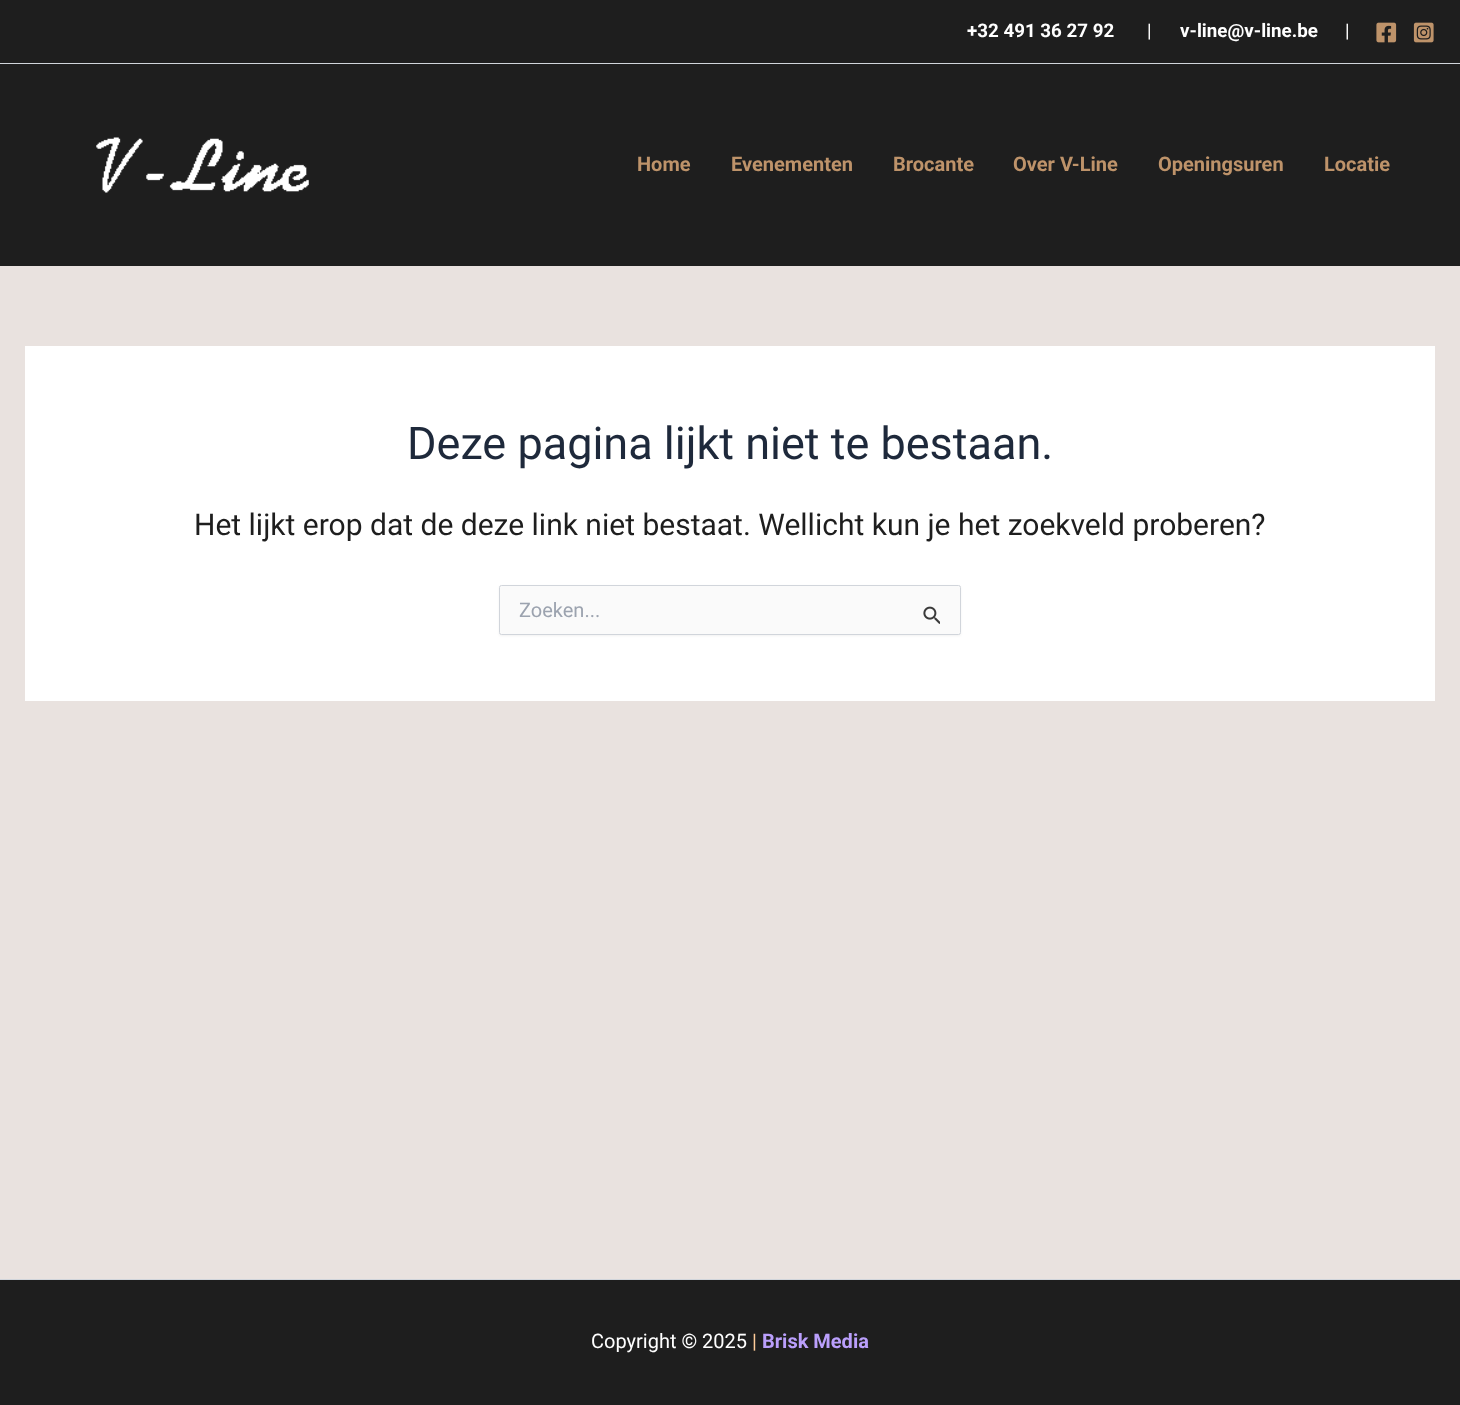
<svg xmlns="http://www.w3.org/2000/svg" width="1460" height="1405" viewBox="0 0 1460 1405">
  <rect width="100%" height="100%" fill="rgb(233,226,223)"/>
  <rect x="0" y="0" width="1460" height="63" fill="rgb(30,30,30)"/>
  <rect x="0" y="63" width="1460" height="1" fill="rgb(209,213,219)"/>
  <text x="967" y="37" font-family="Roboto" font-size="18.75" font-weight="bold" fill="rgb(255,255,255)">+32 491 36 27 92</text>
  <text x="1147" y="37" font-family="Roboto" font-size="18.75" fill="rgb(255,255,255)">|</text>
  <text x="1180" y="37" font-family="Roboto" font-size="18.75" font-weight="bold" fill="rgb(255,255,255)">v-line@v-line.be</text>
  <text x="1345" y="37" font-family="Roboto" font-size="18.75" fill="rgb(255,255,255)">|</text>
  <image x="1376" y="22" width="21" height="21" href="pic1.png"/>
  <image x="1413" y="22" width="21" height="21" href="pic2.png"/>
  <rect x="0" y="64" width="1460" height="202" fill="rgb(30,30,30)"/>
  <image x="96" y="137" width="213" height="56" href="pic3.png"/>
  <g font-family="Roboto" font-size="20" font-weight="bold" fill="rgb(190,147,106)">
    <text x="637" y="171">Home</text>
    <text x="731" y="171">Evenementen</text>
    <text x="893" y="171">Brocante</text>
    <text x="1013" y="171">Over V-Line</text>
    <text x="1158" y="171">Openingsuren</text>
    <text x="1324" y="171">Locatie</text>
  </g>
  <rect x="25" y="346" width="1410" height="355" fill="rgb(255,255,255)"/>
  <text x="407" y="459" font-family="Roboto" font-size="45" fill="rgb(30,41,59)">Deze pagina lijkt niet te bestaan.</text>
  <text x="194" y="535" font-family="Roboto" font-size="30" fill="rgb(30,30,30)">Het lijkt erop dat de deze link niet bestaat. Wellicht kun je het zoekveld proberen?</text>
  <rect x="499" y="586" width="462" height="50" rx="2.5" fill="rgba(0,0,0,0.05)" filter="blur(1px)"/>
  <rect x="499.5" y="585.5" width="461" height="49" rx="2" fill="rgb(250,250,250)" stroke="rgb(209,213,219)"/>
  <text x="519" y="617" font-family="Roboto" font-size="20" fill="rgb(156,163,175)">Zoeken...</text>
  <image x="923" y="606" width="17" height="18" href="pic4.png"/>
  <rect x="0" y="1280" width="1460" height="125" fill="rgb(30,30,30)"/>
  <rect x="0" y="1279" width="1460" height="1" fill="rgb(209,213,219)"/>
  <text x="591" y="1348" font-family="Roboto" font-size="20" fill="rgb(255,255,255)">Copyright © 2025</text>
  <text x="752" y="1348" font-family="Roboto" font-size="20" fill="rgb(255,204,153)">|</text>
  <text x="762" y="1348" font-family="Roboto" font-size="20" font-weight="bold" fill="rgb(186,159,251)">Brisk Media</text>
</svg>
